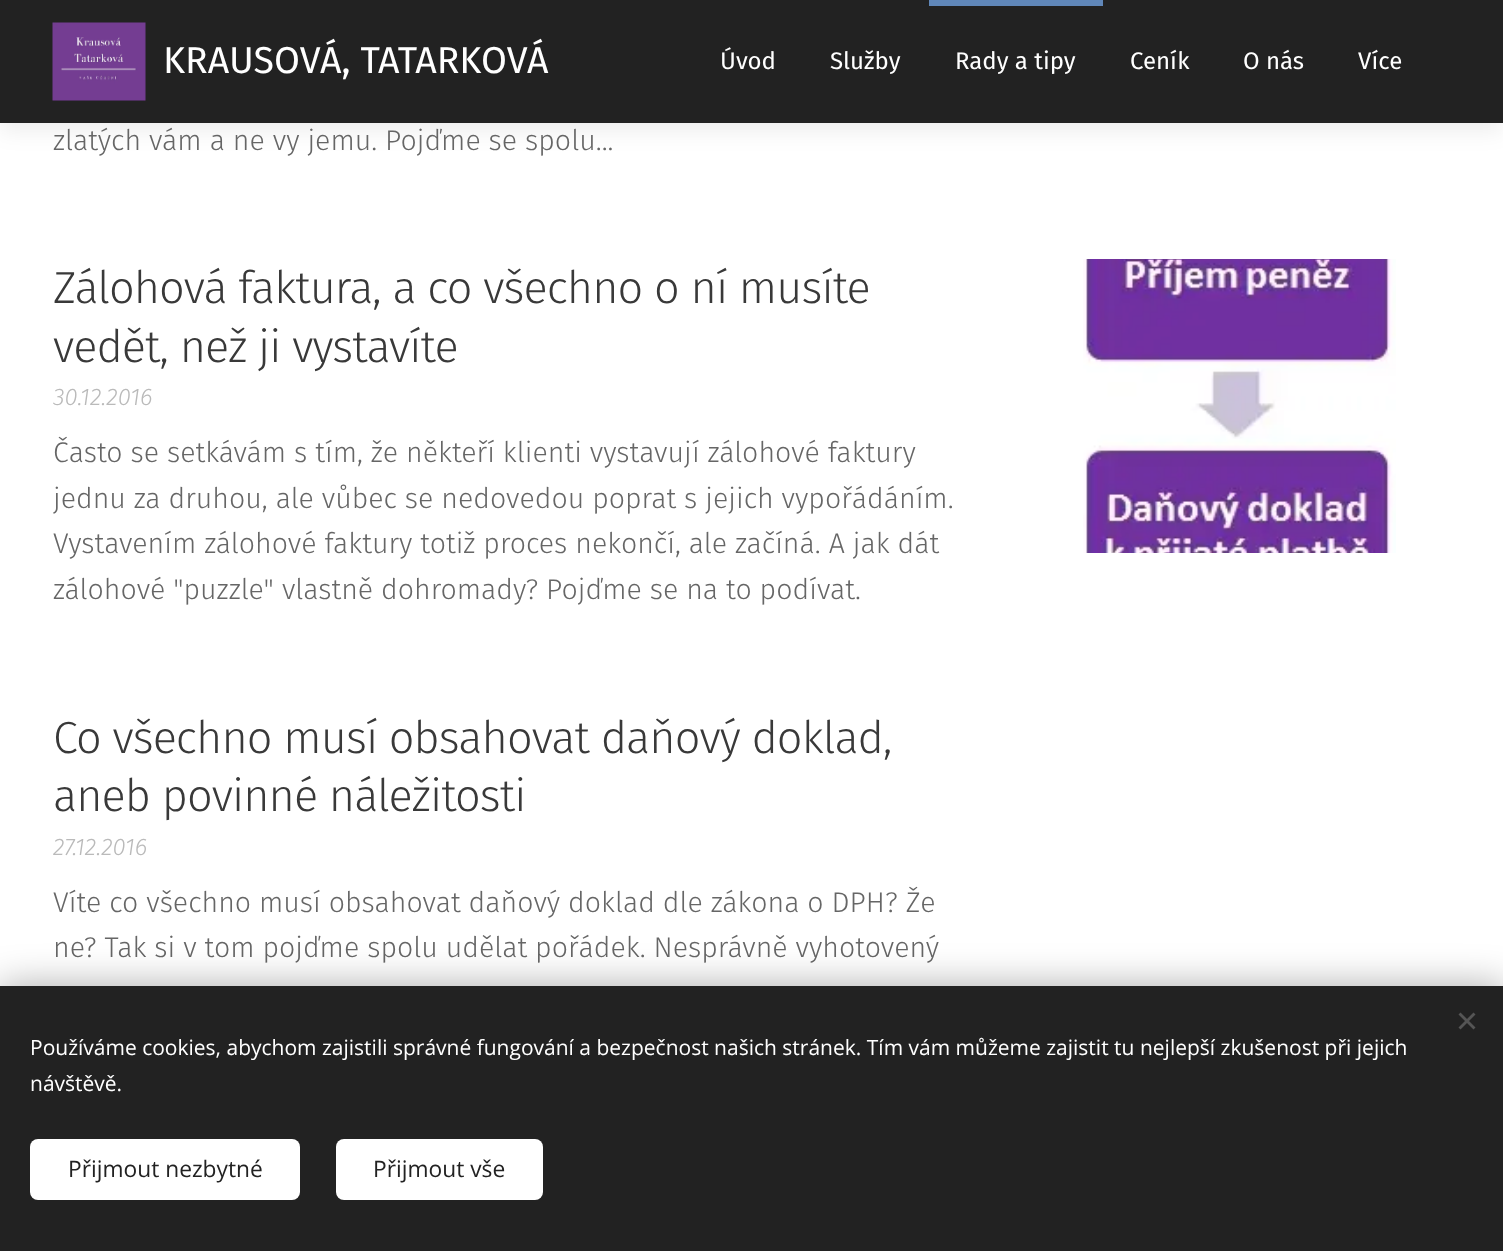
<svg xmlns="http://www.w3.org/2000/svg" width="1503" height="1251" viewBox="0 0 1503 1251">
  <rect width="100%" height="100%" fill="rgb(255,255,255)"/>
  <rect x="0" y="8" width="1503" height="123" fill="rgba(0,0,0,0.07)" filter="blur(11px)"/>
  <rect x="0" y="0" width="1503" height="123" fill="rgb(34,34,34)"/>
  <image x="52" y="22" width="94" height="79" href="pic1.png"/>
  <text x="163" y="73" font-family="Fira Sans" font-size="37.5" fill="rgb(255,255,255)">KRAUSOVÁ, TATARKOVÁ</text>
  <g font-family="Fira Sans" font-size="24" fill="rgb(255,255,255)">
    <text x="720" y="69">Úvod</text>
    <text x="830" y="69">Služby</text>
  </g>
  <rect x="929" y="0" width="174" height="6" fill="rgb(96,135,185)"/>
  <g font-family="Fira Sans" font-size="24" fill="rgb(255,255,255)">
    <text x="955" y="69">Rady a tipy</text>
    <text x="1130" y="69">Ceník</text>
    <text x="1243" y="69">O nás</text>
    <text x="1358" y="69">Více</text>
  </g>
  <text x="53" y="150" font-family="Fira Sans" font-size="28.5" font-weight="300" fill="rgb(102,102,102)">zlatých vám a ne vy jemu. Pojďme se spolu...</text>
  <g font-family="Fira Sans" font-size="45" font-weight="300" letter-spacing="-0.9" fill="rgb(57,57,57)">
    <text>
      <tspan x="53" y="303">Zálohová faktura, a co všechno o ní musíte</tspan>
      <tspan x="53" y="362">vedět, než ji vystavíte</tspan>
    </text>
  </g>
  <text x="53" y="405" font-family="Fira Sans" font-size="24" font-weight="300" font-style="italic" fill="rgb(186,186,186)">30.12.2016</text>
  <g font-family="Fira Sans" font-size="28.5" font-weight="300" fill="rgb(102,102,102)">
    <text>
      <tspan x="53" y="462">Často se setkávám s tím, že někteří klienti vystavují zálohové faktury</tspan>
      <tspan x="53" y="508">jednu za druhou, ale vůbec se nedovedou poprat s jejich vypořádáním.</tspan>
      <tspan x="53" y="553">Vystavením zálohové faktury totiž proces nekončí, ale začíná. A jak dát</tspan>
      <tspan x="53" y="599">zálohové "puzzle" vlastně dohromady? Pojďme se na to podívat.</tspan>
    </text>
  </g>
  <image x="1083" y="259" width="313" height="294" href="pic2.png"/>
  <g font-family="Fira Sans" font-size="45" font-weight="300" letter-spacing="-0.9" fill="rgb(57,57,57)">
    <text>
      <tspan x="53" y="753">Co všechno musí obsahovat daňový doklad,</tspan>
      <tspan x="53" y="811">aneb povinné náležitosti</tspan>
    </text>
  </g>
  <text x="53" y="855" font-family="Fira Sans" font-size="24" font-weight="300" font-style="italic" fill="rgb(186,186,186)">27.12.2016</text>
  <g font-family="Fira Sans" font-size="28.5" font-weight="300" fill="rgb(102,102,102)">
    <text>
      <tspan x="53" y="912">Víte co všechno musí obsahovat daňový doklad dle zákona o DPH? Že</tspan>
      <tspan x="53" y="957">ne? Tak si v tom pojďme spolu udělat pořádek. Nesprávně vyhotovený</tspan>
    </text>
  </g>
  <rect x="0" y="986" width="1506" height="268" fill="rgba(0,0,0,0.33)" filter="blur(19px)"/>
  <rect x="0" y="986" width="1503" height="265" fill="rgb(34,34,34)"/>
  <path d="M1458.5 1027.5L1473.5 1012.5L1475.5 1014.5L1460.5 1029.5Z" fill="rgb(85,85,85)"/>
  <path d="M1460.5 1012.5L1475.5 1027.5L1473.5 1029.5L1458.5 1014.5Z" fill="rgb(85,85,85)"/>
  <g font-family="Open Sans" font-size="21" fill="rgb(255,255,255)">
    <text>
      <tspan x="30" y="1055">Používáme cookies, abychom zajistili správné fungování a bezpečnost našich stránek. Tím vám můžeme zajistit tu nejlepší zkušenost při jejich</tspan>
      <tspan x="30" y="1091">návštěvě.</tspan>
    </text>
  </g>
  <rect x="30" y="1139" width="270" height="61" rx="8" fill="rgb(255,255,255)"/>
  <text x="68" y="1177" font-family="Open Sans" font-size="22.75" fill="rgb(34,34,34)">Přijmout nezbytné</text>
  <rect x="336" y="1139" width="207" height="61" rx="8" fill="rgb(255,255,255)"/>
  <text x="373" y="1177" font-family="Open Sans" font-size="22.75" fill="rgb(34,34,34)">Přijmout vše</text>
</svg>
